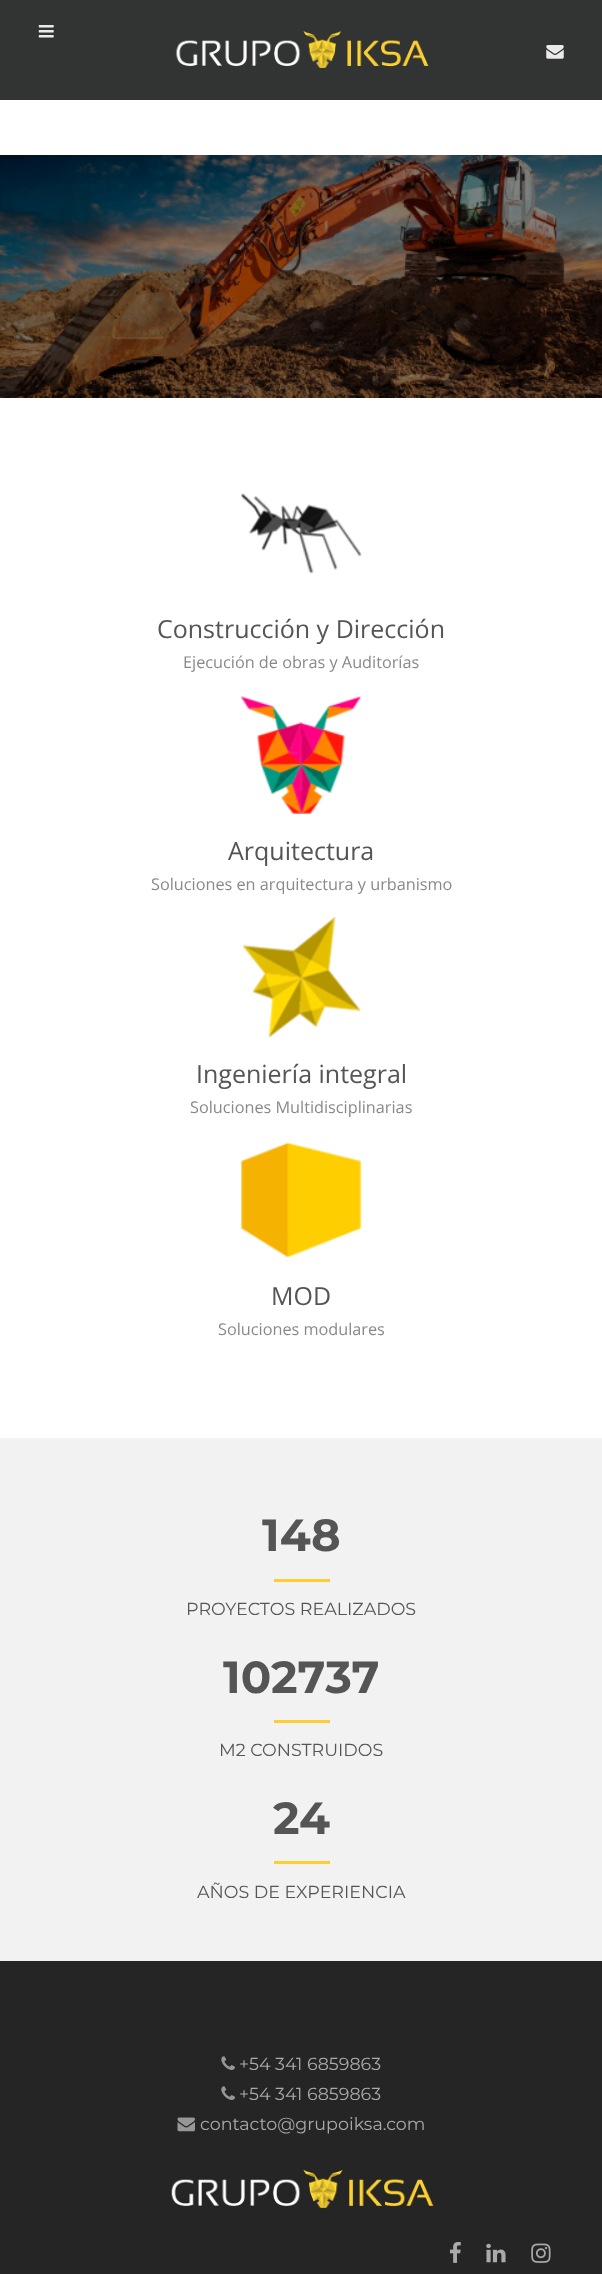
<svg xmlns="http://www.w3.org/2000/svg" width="602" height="2274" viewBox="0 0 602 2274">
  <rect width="100%" height="100%" fill="rgb(255,255,255)"/>
  <rect x="0" y="0" width="602" height="100" fill="rgb(50,51,51)"/>
  <image x="38" y="25" width="16" height="13" href="pic1.png"/>
  <image x="175" y="31" width="254" height="38" href="pic2.png"/>
  <image x="546" y="45" width="18" height="14" href="pic3.png"/>
  <image x="0" y="155" width="602" height="243" href="pic4.png"/>
  <rect x="0" y="155" width="23" height="4" fill="rgb(0,16,33)"/>
  <image x="241" y="493" width="121" height="81" href="pic5.png"/>
  <text x="157" y="638" font-family="Open Sans" font-size="25" fill="rgb(85,85,85)">Construcción y Dirección</text>
  <text x="183" y="668" font-family="Open Sans" font-size="16.25" fill="rgb(137,137,137)">Ejecución de obras y Auditorías</text>
  <image x="241" y="696" width="121" height="118" href="pic6.png"/>
  <text x="228" y="860" font-family="Open Sans" font-size="25" fill="rgb(85,85,85)">Arquitectura</text>
  <text x="151" y="890" font-family="Open Sans" font-size="16.25" fill="rgb(137,137,137)">Soluciones en arquitectura y urbanismo</text>
  <image x="242" y="917" width="119" height="121" href="pic7.png"/>
  <text x="196" y="1083" font-family="Open Sans" font-size="25" fill="rgb(85,85,85)">Ingeniería integral</text>
  <text x="190" y="1113" font-family="Open Sans" font-size="16.25" fill="rgb(137,137,137)">Soluciones Multidisciplinarias</text>
  <image x="241" y="1142" width="121" height="116" href="pic8.png"/>
  <text x="271" y="1305" font-family="Open Sans" font-size="25" fill="rgb(85,85,85)">MOD</text>
  <text x="218" y="1335" font-family="Open Sans" font-size="16.25" fill="rgb(137,137,137)">Soluciones modulares</text>
  <rect x="0" y="1438" width="602" height="523" fill="rgb(242,242,242)"/>
  <text x="262" y="1551" font-family="Montserrat" font-size="45" font-weight="bold" fill="rgb(85,85,85)">148</text>
  <rect x="274" y="1579" width="56" height="3" fill="rgb(255,205,50)"/>
  <text x="186" y="1615" font-family="Montserrat" font-size="17.5" fill="rgb(85,85,85)">PROYECTOS REALIZADOS</text>
  <text x="223" y="1693" font-family="Montserrat" font-size="45" font-weight="bold" fill="rgb(85,85,85)">102737</text>
  <rect x="274" y="1720" width="56" height="3" fill="rgb(255,205,50)"/>
  <text x="219" y="1756" font-family="Montserrat" font-size="17.5" fill="rgb(85,85,85)">M2 CONSTRUIDOS</text>
  <text x="273" y="1834" font-family="Montserrat" font-size="45" font-weight="bold" fill="rgb(85,85,85)">24</text>
  <rect x="274" y="1861" width="56" height="3" fill="rgb(255,205,50)"/>
  <text x="197" y="1898" font-family="Montserrat" font-size="17.5" fill="rgb(85,85,85)">AÑOS DE EXPERIENCIA</text>
  <rect x="0" y="1961" width="602" height="313" fill="rgb(37,37,37)"/>
  <image x="221" y="2056" width="14" height="14" href="pic9.png"/>
  <text x="239" y="2070" font-family="Montserrat" font-size="17.5" fill="rgb(170,170,170)">+54 341 6859863</text>
  <image x="221" y="2086" width="14" height="14" href="pic9.png"/>
  <text x="239" y="2100" font-family="Montserrat" font-size="17.5" fill="rgb(170,170,170)">+54 341 6859863</text>
  <image x="177" y="2117" width="18" height="15" href="pic10.png"/>
  <text x="200" y="2130" font-family="Montserrat" font-size="17.5" fill="rgb(170,170,170)">contacto@grupoiksa.com</text>
  <image x="171" y="2170" width="263" height="39" href="pic11.png"/>
  <image x="449" y="2242" width="12" height="21" href="pic12.png"/>
  <image x="486" y="2243" width="20" height="20" href="pic13.png"/>
  <image x="531" y="2243" width="20" height="20" href="pic14.png"/>
</svg>
